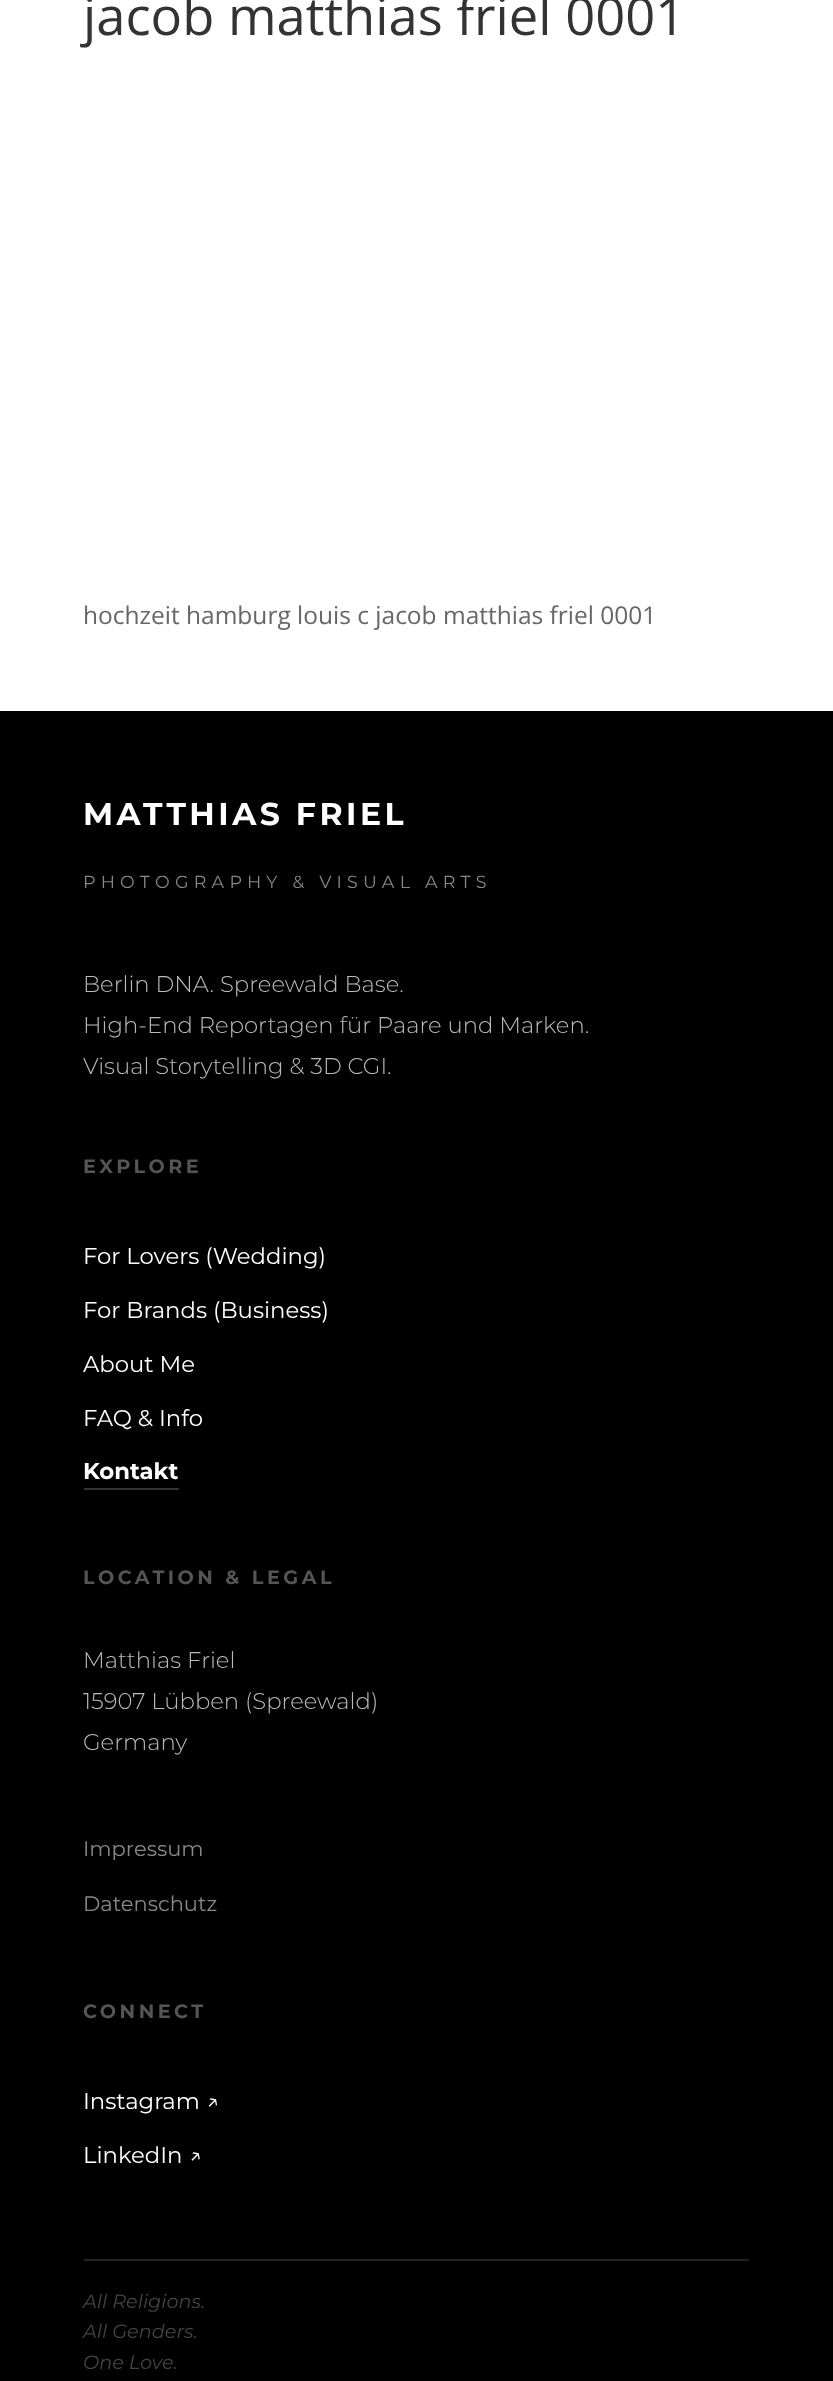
<svg xmlns="http://www.w3.org/2000/svg" width="833" height="2381" viewBox="0 0 833 2381">
  <rect width="100%" height="100%" fill="rgb(255,255,255)"/>
  <text x="83" y="35" font-family="Open Sans" font-size="52.5" fill="rgb(51,51,51)">jacob matthias friel 0001</text>
  <text x="83" y="624" font-family="Open Sans" font-size="24.5" fill="rgb(102,102,102)">hochzeit hamburg louis c jacob matthias friel 0001</text>
  <rect x="0" y="711" width="833" height="1670" fill="rgb(0,0,0)"/>
  <text x="83" y="825" font-family="Montserrat" font-size="31.5" font-weight="bold" letter-spacing="3.5" fill="rgb(255,255,255)">MATTHIAS FRIEL</text>
  <text x="83" y="888" font-family="Montserrat" font-size="17.5" letter-spacing="5.25" fill="rgb(136,136,136)">PHOTOGRAPHY &amp; VISUAL ARTS</text>
  <g font-family="Montserrat" font-size="22.75" font-weight="300" fill="rgb(187,187,187)">
    <text>
      <tspan x="83" y="992">Berlin DNA. Spreewald Base.</tspan>
      <tspan x="83" y="1033">High-End Reportagen für Paare und Marken.</tspan>
      <tspan x="83" y="1074">Visual Storytelling &amp; 3D CGI.</tspan>
    </text>
  </g>
  <text x="83" y="1173" font-family="Montserrat" font-size="19.25" font-weight="bold" letter-spacing="3.5" fill="rgb(85,85,85)">EXPLORE</text>
  <g font-family="Montserrat" font-size="22.75" fill="rgb(255,255,255)">
    <text x="83" y="1264">For Lovers (Wedding)</text>
    <text x="83" y="1318">For Brands (Business)</text>
    <text x="83" y="1372">About Me</text>
    <text x="83" y="1426">FAQ &amp; Info</text>
  </g>
  <text x="83" y="1479" font-family="Montserrat" font-size="22.75" font-weight="bold" fill="rgb(255,255,255)">Kontakt</text>
  <rect x="84" y="1488" width="95" height="2" fill="rgb(51,51,51)"/>
  <text x="83" y="1584" font-family="Montserrat" font-size="19.25" font-weight="bold" letter-spacing="3.5" fill="rgb(85,85,85)">LOCATION &amp; LEGAL</text>
  <g font-family="Montserrat" font-size="22.75" font-weight="300" fill="rgb(187,187,187)">
    <text>
      <tspan x="83" y="1668">Matthias Friel</tspan>
      <tspan x="83" y="1709">15907 Lübben (Spreewald)</tspan>
      <tspan x="83" y="1750">Germany</tspan>
    </text>
  </g>
  <g font-family="Montserrat" font-size="21" fill="rgb(136,136,136)">
    <text x="83" y="1856">Impressum</text>
    <text x="83" y="1911">Datenschutz</text>
  </g>
  <text x="83" y="2018" font-family="Montserrat" font-size="19.25" font-weight="bold" letter-spacing="3.5" fill="rgb(85,85,85)">CONNECT</text>
  <g font-family="Montserrat" font-size="22.75" fill="rgb(255,255,255)">
    <text x="83" y="2109">Instagram ↗</text>
    <text x="83" y="2163">LinkedIn ↗</text>
  </g>
  <rect x="84" y="2259" width="665" height="2" fill="rgb(34,34,34)"/>
  <g font-family="Montserrat" font-size="19.25" font-style="italic" fill="rgb(68,68,68)">
    <text>
      <tspan x="83" y="2308">All Religions.</tspan>
      <tspan x="83" y="2338">All Genders.</tspan>
      <tspan x="83" y="2369">One Love.</tspan>
    </text>
  </g>
</svg>
